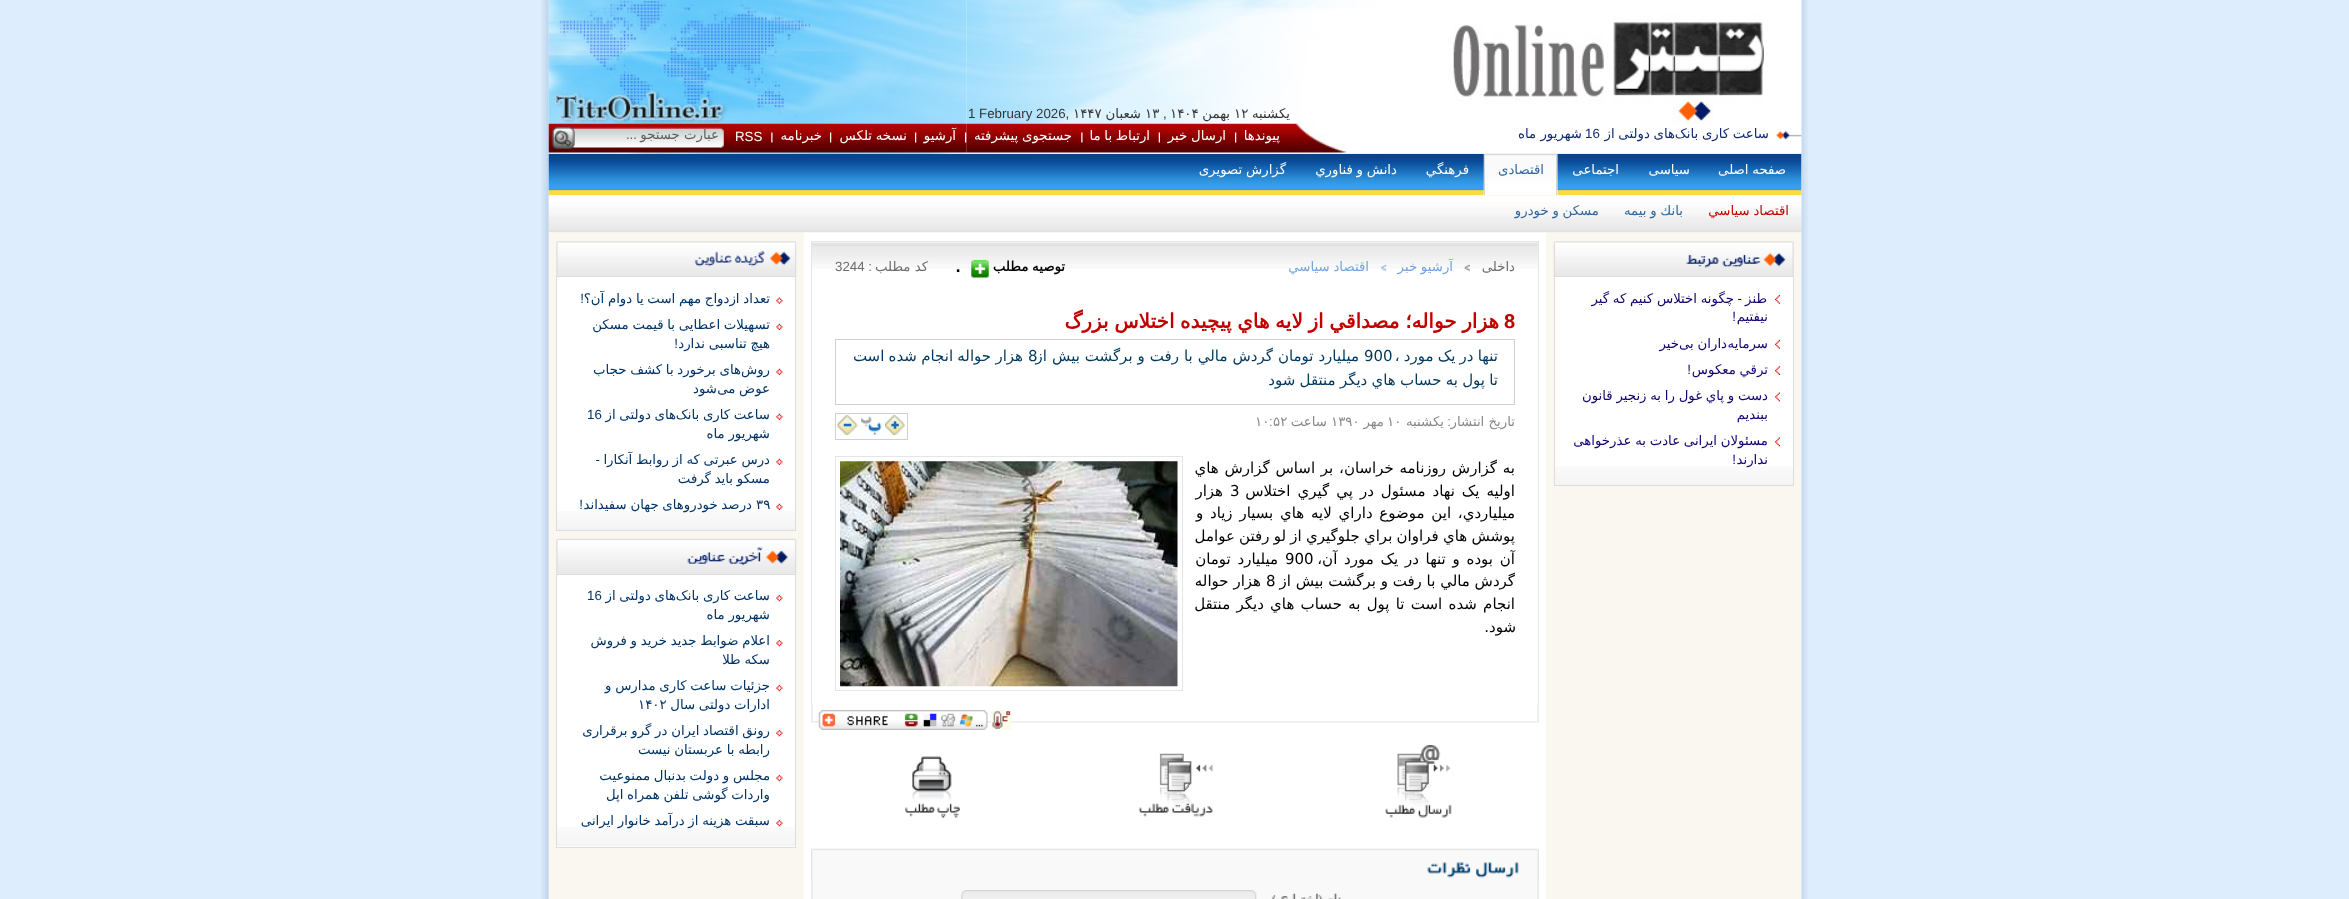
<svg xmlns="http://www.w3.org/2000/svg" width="2349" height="899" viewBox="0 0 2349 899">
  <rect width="100%" height="100%" fill="rgb(221,237,254)"/>
  <image x="541" y="0" width="1267" height="899" href="pic1.png"/>
  <image x="548" y="153" width="1254" height="80" href="pic12.png"/>
  <image x="1483" y="153" width="75" height="42" href="pic13.png"/>
  <image x="1383" y="0" width="419" height="154" href="pic2.png"/>
  <image x="966" y="0" width="418" height="154" href="pic3.png"/>
  <image x="548" y="0" width="419" height="154" href="pic4.png"/>
  <text x="1290" y="118" font-family="DejaVu Sans" font-size="13.3" direction="rtl" fill="rgb(53,53,53)">يکشنبه</text>
  <text x="1234" y="118" font-family="DejaVu Sans" font-size="13.3" fill="rgb(53,53,53)">۱۲</text>
  <text x="1230" y="118" font-family="DejaVu Sans" font-size="13.3" direction="rtl" fill="rgb(53,53,53)">بهمن</text>
  <text x="1170" y="118" font-family="DejaVu Sans" font-size="13.3" fill="rgb(53,53,53)">۱۴۰۴</text>
  <text x="1163" y="118" font-family="Liberation Sans" font-size="13.3" fill="rgb(53,53,53)">,</text>
  <text x="1145" y="118" font-family="DejaVu Sans" font-size="13.3" fill="rgb(53,53,53)">۱۳</text>
  <text x="1141" y="118" font-family="DejaVu Sans" font-size="13.3" direction="rtl" fill="rgb(53,53,53)">شعبان</text>
  <text x="1073" y="118" font-family="DejaVu Sans" font-size="13.3" fill="rgb(53,53,53)">۱۴۴۷</text>
  <text x="968" y="118" font-family="Liberation Sans" font-size="13.3" fill="rgb(53,53,53)">1 February 2026,</text>
  <image x="1776" y="131" width="26" height="9" href="pic5.png"/>
  <g font-family="DejaVu Sans" font-size="13.3" direction="rtl" fill="rgb(17,42,114)">
    <text x="1769" y="138" word-spacing="-0.5">ساعت کاری بانک</text>
    <text x="1675" y="138" word-spacing="-0.5">های دولتی از</text>
  </g>
  <text x="1585" y="138" font-family="Liberation Sans" font-size="13.3" fill="rgb(17,42,114)">16</text>
  <text x="1582" y="138" font-family="DejaVu Sans" font-size="13.3" direction="rtl" fill="rgb(17,42,114)">شهریور ماه</text>
  <image x="1235" y="132" width="2" height="11" href="pic6.png"/>
  <text x="1280" y="140" font-family="DejaVu Sans" font-size="13.3" direction="rtl" fill="rgb(255,255,255)">پيوندها</text>
  <image x="1158" y="132" width="2" height="11" href="pic7.png"/>
  <text x="1226" y="140" word-spacing="-0.5" font-family="DejaVu Sans" font-size="13.3" direction="rtl" fill="rgb(255,255,255)">ارسال خبر</text>
  <image x="1081" y="132" width="2" height="11" href="pic8.png"/>
  <text x="1150" y="140" word-spacing="-0.5" font-family="DejaVu Sans" font-size="13.3" direction="rtl" fill="rgb(255,255,255)">ارتباط با ما</text>
  <image x="965" y="132" width="2" height="11" href="pic9.png"/>
  <text x="1072" y="140" word-spacing="-0.5" font-family="DejaVu Sans" font-size="13.3" direction="rtl" fill="rgb(255,255,255)">جستجوی پيشرفته</text>
  <image x="915" y="132" width="2" height="11" href="pic6.png"/>
  <text x="956" y="140" font-family="DejaVu Sans" font-size="13.3" direction="rtl" fill="rgb(255,255,255)">آرشيو</text>
  <image x="830" y="132" width="2" height="11" href="pic6.png"/>
  <text x="907" y="140" word-spacing="-0.5" font-family="DejaVu Sans" font-size="13.3" direction="rtl" fill="rgb(255,255,255)">نسخه تلکس</text>
  <image x="771" y="132" width="2" height="11" href="pic8.png"/>
  <text x="822" y="140" font-family="DejaVu Sans" font-size="13.3" direction="rtl" fill="rgb(255,255,255)">خبرنامه</text>
  <text x="735" y="141" font-family="Liberation Sans" font-size="13.3" fill="rgb(255,255,255)">RSS</text>
  <image x="575" y="127" width="149" height="21" href="pic10.png"/>
  <text x="719" y="139" font-family="DejaVu Sans" font-size="13.3" direction="rtl" fill="rgb(95,95,95)">عبارت جستجو</text>
  <text x="637" y="139" font-family="Liberation Sans" font-size="13.3" direction="rtl" fill="rgb(95,95,95)">...</text>
  <image x="551" y="126" width="24" height="23" href="pic11.png"/>
  <g font-family="DejaVu Sans" font-size="13.3" direction="rtl" fill="rgb(255,255,255)">
    <text x="1786" y="174" word-spacing="-0.5">صفحه اصلی</text>
    <text x="1690" y="174">سياسی</text>
    <text x="1619" y="174">اجتماعی</text>
  </g>
  <rect x="1556" y="154" width="1" height="41" fill="rgb(213,213,213)"/>
  <rect x="1484" y="154" width="1" height="41" fill="rgb(213,213,213)"/>
  <text x="1544" y="174" font-family="DejaVu Sans" font-size="13.3" direction="rtl" fill="rgb(51,102,153)">اقتصادی</text>
  <g font-family="DejaVu Sans" font-size="13.3" direction="rtl" fill="rgb(255,255,255)">
    <text x="1469" y="174">فرهنگي</text>
    <text x="1397" y="174" word-spacing="-0.5">دانش و فناوري</text>
    <text x="1286" y="174" word-spacing="-0.5">گزارش تصويری</text>
  </g>
  <text x="1789" y="215" word-spacing="-0.5" font-family="DejaVu Sans" font-size="13.3" direction="rtl" fill="rgb(194,0,0)">اقتصاد سياسي</text>
  <g font-family="DejaVu Sans" font-size="13.3" direction="rtl" fill="rgb(51,102,153)">
    <text x="1683" y="215" word-spacing="-0.5">بانك و بيمه</text>
    <text x="1599" y="215" word-spacing="-0.5">مسكن و خودرو</text>
  </g>
  <image x="548" y="232" width="1254" height="667" href="pic14.png"/>
  <image x="1553" y="241" width="241" height="36" href="pic15.png"/>
  <rect x="1555" y="277" width="238" height="189" fill="rgb(255,255,255)"/>
  <image x="1555" y="466" width="238" height="19" href="pic16.png"/>
  <rect x="1554.5" y="276.5" width="239" height="209" fill="none" stroke="rgb(222,220,220)"/>
  <image x="1775" y="294" width="5" height="10" href="pic17.png"/>
  <text x="1767" y="303" font-family="DejaVu Sans" font-size="13.3" direction="rtl" fill="rgb(21,0,112)">طنز</text>
  <text x="1742" y="303" font-family="Liberation Sans" font-size="13.3" direction="rtl" fill="rgb(21,0,112)">-</text>
  <g font-family="DejaVu Sans" font-size="13.3" direction="rtl" fill="rgb(21,0,112)">
    <text x="1734" y="303" word-spacing="-0.5">چگونه اختلاس کنیم که گیر</text>
    <text x="1768" y="321">نیفتیم</text>
  </g>
  <text x="1736" y="321" font-family="Liberation Sans" font-size="13.3" direction="rtl" fill="rgb(21,0,112)">!</text>
  <image x="1775" y="339" width="5" height="10" href="pic18.png"/>
  <g font-family="DejaVu Sans" font-size="13.3" direction="rtl" fill="rgb(21,0,112)">
    <text x="1768" y="348">سرمایه</text>
    <text x="1727" y="348" word-spacing="-0.5">داران بی</text>
    <text x="1679" y="348">خیر</text>
  </g>
  <image x="1775" y="366" width="5" height="9" href="pic19.png"/>
  <text x="1768" y="374" word-spacing="-0.5" font-family="DejaVu Sans" font-size="13.3" direction="rtl" fill="rgb(21,0,112)">ترقي معكوس</text>
  <text x="1691" y="374" font-family="Liberation Sans" font-size="13.3" direction="rtl" fill="rgb(21,0,112)">!</text>
  <image x="1775" y="392" width="5" height="10" href="pic20.png"/>
  <g font-family="DejaVu Sans" font-size="13.3" direction="rtl" fill="rgb(21,0,112)">
    <text>
      <tspan x="1768" y="400" word-spacing="-0.5">دست و پاي غول را به زنجير قانون</tspan>
      <tspan x="1768" y="419">ببنديم</tspan>
    </text>
  </g>
  <image x="1775" y="437" width="5" height="10" href="pic20.png"/>
  <g font-family="DejaVu Sans" font-size="13.3" direction="rtl" fill="rgb(21,0,112)">
    <text>
      <tspan x="1768" y="445" word-spacing="-0.5">مسئولان ایرانی عادت به عذرخواهی</tspan>
      <tspan x="1768" y="464">ندارند</tspan>
    </text>
  </g>
  <text x="1736" y="464" font-family="Liberation Sans" font-size="13.3" direction="rtl" fill="rgb(21,0,112)">!</text>
  <image x="812" y="242" width="726" height="27" href="pic21.png"/>
  <rect x="811" y="241" width="728" height="1" fill="rgb(232,228,228)"/>
  <rect x="1538" y="241" width="1" height="463" fill="rgb(232,228,228)"/>
  <rect x="811" y="241" width="1" height="463" fill="rgb(232,228,228)"/>
  <text x="1515" y="271" font-family="DejaVu Sans" font-size="13.3" direction="rtl" fill="rgb(108,108,108)">داخلی</text>
  <image x="1464" y="264" width="6" height="8" href="pic22.png"/>
  <text x="1453" y="271" word-spacing="-0.5" font-family="DejaVu Sans" font-size="13.3" direction="rtl" fill="rgb(116,164,224)">آرشيو خبر</text>
  <image x="1381" y="264" width="6" height="8" href="pic23.png"/>
  <text x="1369" y="271" word-spacing="-0.5" font-family="DejaVu Sans" font-size="13.3" direction="rtl" fill="rgb(116,164,224)">اقتصاد سياسي</text>
  <text x="1065" y="271" word-spacing="-0.5" font-family="DejaVu Sans" font-size="13.3" font-weight="bold" direction="rtl" fill="rgb(0,0,0)">توصيه مطلب</text>
  <image x="971" y="259" width="18" height="19" href="pic24.png"/>
  <text x="953" y="276" font-family="DejaVu Sans" font-size="18" font-weight="bold" fill="rgb(0,0,0)">۰</text>
  <text x="928" y="271" font-family="DejaVu Sans" font-size="13.3" direction="rtl" fill="rgb(108,108,108)">کد مطلب</text>
  <text x="872" y="271" font-family="Liberation Sans" font-size="13.3" direction="rtl" fill="rgb(108,108,108)">:</text>
  <text x="835" y="271" font-family="Liberation Sans" font-size="13.3" fill="rgb(108,108,108)">3244</text>
  <text x="1504" y="328" font-family="Liberation Sans" font-size="20" font-weight="bold" fill="rgb(194,0,0)">8</text>
  <text x="1499" y="328" word-spacing="-0.75" font-family="DejaVu Sans" font-size="20" font-weight="bold" direction="rtl" fill="rgb(194,0,0)">هزار حواله؛ مصداقي از لايه هاي پيچيده اختلاس بزرگ</text>
  <rect x="835.5" y="339.5" width="679" height="65" fill="none" stroke="rgb(212,205,212)"/>
  <text x="1498" y="361" word-spacing="-0.5" font-family="DejaVu Sans" font-size="15" direction="rtl" fill="rgb(0,56,94)">تنها در يک مورد ،</text>
  <g font-family="DejaVu Sans" font-size="15" fill="rgb(0,56,94)">
    <text x="1364" y="361">900</text>
    <text x="1028" y="361">8</text>
  </g>
  <g font-family="DejaVu Sans" font-size="15" direction="rtl" fill="rgb(0,56,94)">
    <text x="1359" y="361" word-spacing="0.25">ميليارد تومان گردش مالي با رفت و برگشت بيش از</text>
    <text x="1023" y="361" word-spacing="-0.5">هزار حواله انجام شده است</text>
    <text x="1498" y="385" word-spacing="-0.5">تا پول به حساب هاي ديگر منتقل شود</text>
  </g>
  <text x="1515" y="426" font-family="DejaVu Sans" font-size="13.3" direction="rtl" fill="rgb(137,137,137)">تاريخ انتشار</text>
  <text x="1451" y="426" font-family="Liberation Sans" font-size="13.3" direction="rtl" fill="rgb(137,137,137)">:</text>
  <text x="1444" y="426" font-family="DejaVu Sans" font-size="13.3" direction="rtl" fill="rgb(137,137,137)">يکشنبه</text>
  <text x="1387" y="426" font-family="DejaVu Sans" font-size="13.3" fill="rgb(137,137,137)">۱۰</text>
  <text x="1384" y="426" font-family="DejaVu Sans" font-size="13.3" direction="rtl" fill="rgb(137,137,137)">مهر</text>
  <text x="1331" y="426" font-family="DejaVu Sans" font-size="13.3" fill="rgb(137,137,137)">۱۳۹۰</text>
  <text x="1327" y="426" font-family="DejaVu Sans" font-size="13.3" direction="rtl" fill="rgb(137,137,137)">ساعت</text>
  <text x="1273" y="426" font-family="DejaVu Sans" font-size="13.3" fill="rgb(137,137,137)">۵۲</text>
  <text x="1269" y="426" font-family="Liberation Sans" font-size="13.3" fill="rgb(137,137,137)">:</text>
  <text x="1255" y="426" font-family="DejaVu Sans" font-size="13.3" fill="rgb(137,137,137)">۱۰</text>
  <rect x="835.5" y="413.5" width="72" height="26" fill="none" stroke="rgb(212,205,212)"/>
  <image x="885" y="415" width="20" height="20" href="pic25.png"/>
  <image x="861" y="416" width="21" height="19" href="pic26.png"/>
  <image x="837" y="415" width="21" height="20" href="pic27.png"/>
  <text x="1515" y="473" word-spacing="1" font-family="DejaVu Sans" font-size="15" direction="rtl" fill="rgb(0,0,0)">به گزارش روزنامه خراسان، بر اساس گزارش هاي</text>
  <rect x="835.5" y="456.5" width="347" height="234" fill="none" stroke="rgb(229,229,232)"/>
  <image x="840" y="461" width="338" height="226" href="pic28.png"/>
  <text x="1515" y="496" word-spacing="2.25" font-family="DejaVu Sans" font-size="15" direction="rtl" fill="rgb(0,0,0)">اوليه يک نهاد مسئول در پي گيري اختلاس</text>
  <text x="1230" y="496" font-family="DejaVu Sans" font-size="15" fill="rgb(0,0,0)">3</text>
  <g font-family="DejaVu Sans" font-size="15" direction="rtl" fill="rgb(0,0,0)">
    <text x="1223" y="496">هزار</text>
    <text>
      <tspan x="1515" y="518" word-spacing="2">ميلياردي، اين موضوع داراي لايه هاي بسيار زياد و</tspan>
      <tspan x="1515" y="541" word-spacing="-0.5">پوشش هاي فراوان براي جلوگيري از لو رفتن عوامل</tspan>
      <tspan x="1515" y="564" word-spacing="2">آن بوده و تنها در يک مورد آن،</tspan>
    </text>
  </g>
  <text x="1285" y="564" font-family="DejaVu Sans" font-size="15" fill="rgb(0,0,0)">900</text>
  <g font-family="DejaVu Sans" font-size="15" direction="rtl" fill="rgb(0,0,0)">
    <text x="1278" y="564" word-spacing="2">ميليارد تومان</text>
    <text x="1515" y="586">گردش مالي با رفت و برگشت بيش از</text>
  </g>
  <text x="1266" y="586" font-family="DejaVu Sans" font-size="15" fill="rgb(0,0,0)">8</text>
  <g font-family="DejaVu Sans" font-size="15" direction="rtl" fill="rgb(0,0,0)">
    <text x="1261" y="586">هزار حواله</text>
    <text x="1515" y="609" word-spacing="1.5">انجام شده است تا پول به حساب هاي ديگر منتقل</text>
    <text x="1516" y="632">شود.</text>
  </g>
  <image x="811" y="704" width="728" height="19" href="pic29.png"/>
  <image x="991" y="710" width="21" height="20" href="pic30.png"/>
  <image x="818" y="710" width="170" height="20" href="pic31.png"/>
  <image x="1385" y="745" width="67" height="73" href="pic32.png"/>
  <image x="1138" y="753" width="75" height="64" href="pic33.png"/>
  <image x="905" y="756" width="55" height="62" href="pic34.png"/>
  <image x="811" y="848" width="728" height="51" href="pic35.png"/>
  <image x="811" y="848" width="728" height="32" href="pic36.png"/>
  <image x="961" y="890" width="380" height="9" href="pic37.png"/>
  <image x="556" y="241" width="241" height="36" href="pic38.png"/>
  <rect x="557" y="277" width="238" height="234" fill="rgb(255,255,255)"/>
  <image x="557" y="511" width="238" height="19" href="pic16.png"/>
  <rect x="556.5" y="276.5" width="239" height="254" fill="none" stroke="rgb(222,220,220)"/>
  <image x="776" y="297" width="7" height="7" href="pic39.png"/>
  <text x="770" y="303" word-spacing="-0.5" font-family="DejaVu Sans" font-size="13.3" direction="rtl" fill="rgb(0,51,102)">تعداد ازدواج مهم است یا دوام آن؟</text>
  <text x="584" y="303" font-family="Liberation Sans" font-size="13.3" direction="rtl" fill="rgb(0,51,102)">!</text>
  <image x="776" y="323" width="7" height="7" href="pic40.png"/>
  <g font-family="DejaVu Sans" font-size="13.3" direction="rtl" fill="rgb(0,51,102)">
    <text>
      <tspan x="770" y="329" word-spacing="-0.5">تسهیلات اعطایی با قیمت مسکن</tspan>
      <tspan x="770" y="348" word-spacing="-0.5">هیچ تناسبی ندارد</tspan>
    </text>
  </g>
  <text x="678" y="348" font-family="Liberation Sans" font-size="13.3" direction="rtl" fill="rgb(0,51,102)">!</text>
  <image x="776" y="368" width="7" height="7" href="pic40.png"/>
  <g font-family="DejaVu Sans" font-size="13.3" direction="rtl" fill="rgb(0,51,102)">
    <text x="741" y="374" word-spacing="-0.5">های برخورد با کشف حجاب</text>
    <text>
      <tspan x="770" y="374">روش</tspan>
      <tspan x="770" y="393" word-spacing="-0.5">عوض می</tspan>
    </text>
    <text x="717" y="393">شود</text>
  </g>
  <image x="776" y="413" width="7" height="7" href="pic40.png"/>
  <g font-family="DejaVu Sans" font-size="13.3" direction="rtl" fill="rgb(0,51,102)">
    <text x="676" y="419" word-spacing="-0.5">های دولتی از</text>
    <text x="770" y="419" word-spacing="-0.5">ساعت کاری بانک</text>
  </g>
  <text x="587" y="419" font-family="Liberation Sans" font-size="13.3" fill="rgb(0,51,102)">16</text>
  <text x="770" y="438" word-spacing="-0.5" font-family="DejaVu Sans" font-size="13.3" direction="rtl" fill="rgb(0,51,102)">شهریور ماه</text>
  <image x="776" y="458" width="7" height="7" href="pic40.png"/>
  <text x="770" y="464" word-spacing="-0.5" font-family="DejaVu Sans" font-size="13.3" direction="rtl" fill="rgb(0,51,102)">درس عبرتی که از روابط آنکارا</text>
  <text x="600" y="464" font-family="Liberation Sans" font-size="13.3" direction="rtl" fill="rgb(0,51,102)">-</text>
  <text x="770" y="483" word-spacing="-0.5" font-family="DejaVu Sans" font-size="13.3" direction="rtl" fill="rgb(0,51,102)">مسکو باید گرفت</text>
  <image x="776" y="503" width="7" height="7" href="pic40.png"/>
  <text x="756" y="509" font-family="DejaVu Sans" font-size="13.3" fill="rgb(0,51,102)">۳۹</text>
  <text x="752" y="509" word-spacing="-0.5" font-family="DejaVu Sans" font-size="13.3" direction="rtl" fill="rgb(0,51,102)">درصد خودروهای جهان سفیداند</text>
  <text x="583" y="509" font-family="Liberation Sans" font-size="13.3" direction="rtl" fill="rgb(0,51,102)">!</text>
  <image x="556" y="538" width="241" height="36" href="pic41.png"/>
  <rect x="557" y="575" width="238" height="272" fill="rgb(255,255,255)"/>
  <image x="557" y="827" width="238" height="19" href="pic42.png"/>
  <rect x="556.5" y="574.5" width="239" height="273" fill="none" stroke="rgb(222,220,220)"/>
  <image x="776" y="594" width="7" height="8" href="pic43.png"/>
  <g font-family="DejaVu Sans" font-size="13.3" direction="rtl" fill="rgb(0,51,102)">
    <text x="676" y="600" word-spacing="-0.5">های دولتی از</text>
    <text x="770" y="600" word-spacing="-0.5">ساعت کاری بانک</text>
  </g>
  <text x="587" y="600" font-family="Liberation Sans" font-size="13.3" fill="rgb(0,51,102)">16</text>
  <text x="770" y="619" word-spacing="-0.5" font-family="DejaVu Sans" font-size="13.3" direction="rtl" fill="rgb(0,51,102)">شهریور ماه</text>
  <image x="776" y="639" width="7" height="8" href="pic44.png"/>
  <g font-family="DejaVu Sans" font-size="13.3" direction="rtl" fill="rgb(0,51,102)">
    <text>
      <tspan x="770" y="645" word-spacing="-0.5">اعلام ضوابط جدید خرید و فروش</tspan>
      <tspan x="770" y="664" word-spacing="-0.5">سکه طلا</tspan>
    </text>
  </g>
  <image x="776" y="684" width="7" height="8" href="pic44.png"/>
  <g font-family="DejaVu Sans" font-size="13.3" direction="rtl" fill="rgb(0,51,102)">
    <text>
      <tspan x="770" y="690" word-spacing="-0.5">جزئیات ساعت کاری مدارس و</tspan>
      <tspan x="770" y="709" word-spacing="-0.5">ادارات دولتی سال</tspan>
    </text>
  </g>
  <text x="638" y="709" font-family="DejaVu Sans" font-size="13.3" fill="rgb(0,51,102)">۱۴۰۲</text>
  <image x="776" y="729" width="7" height="8" href="pic44.png"/>
  <g font-family="DejaVu Sans" font-size="13.3" direction="rtl" fill="rgb(0,51,102)">
    <text>
      <tspan x="770" y="735" word-spacing="-0.5">رونق اقتصاد ایران در گرو برقراری</tspan>
      <tspan x="770" y="754" word-spacing="-0.5">رابطه با عربستان نیست</tspan>
    </text>
  </g>
  <image x="776" y="774" width="7" height="8" href="pic44.png"/>
  <g font-family="DejaVu Sans" font-size="13.3" direction="rtl" fill="rgb(0,51,102)">
    <text>
      <tspan x="770" y="780" word-spacing="-0.5">مجلس و دولت بدنبال ممنوعیت</tspan>
      <tspan x="770" y="799" word-spacing="-0.5">واردات گوشی تلفن همراه اپل</tspan>
    </text>
  </g>
  <image x="776" y="819" width="7" height="8" href="pic44.png"/>
  <text x="770" y="825" word-spacing="-0.5" font-family="DejaVu Sans" font-size="13.3" direction="rtl" fill="rgb(0,51,102)">سبقت هزینه از درآمد خانوار ایرانی</text>
</svg>
